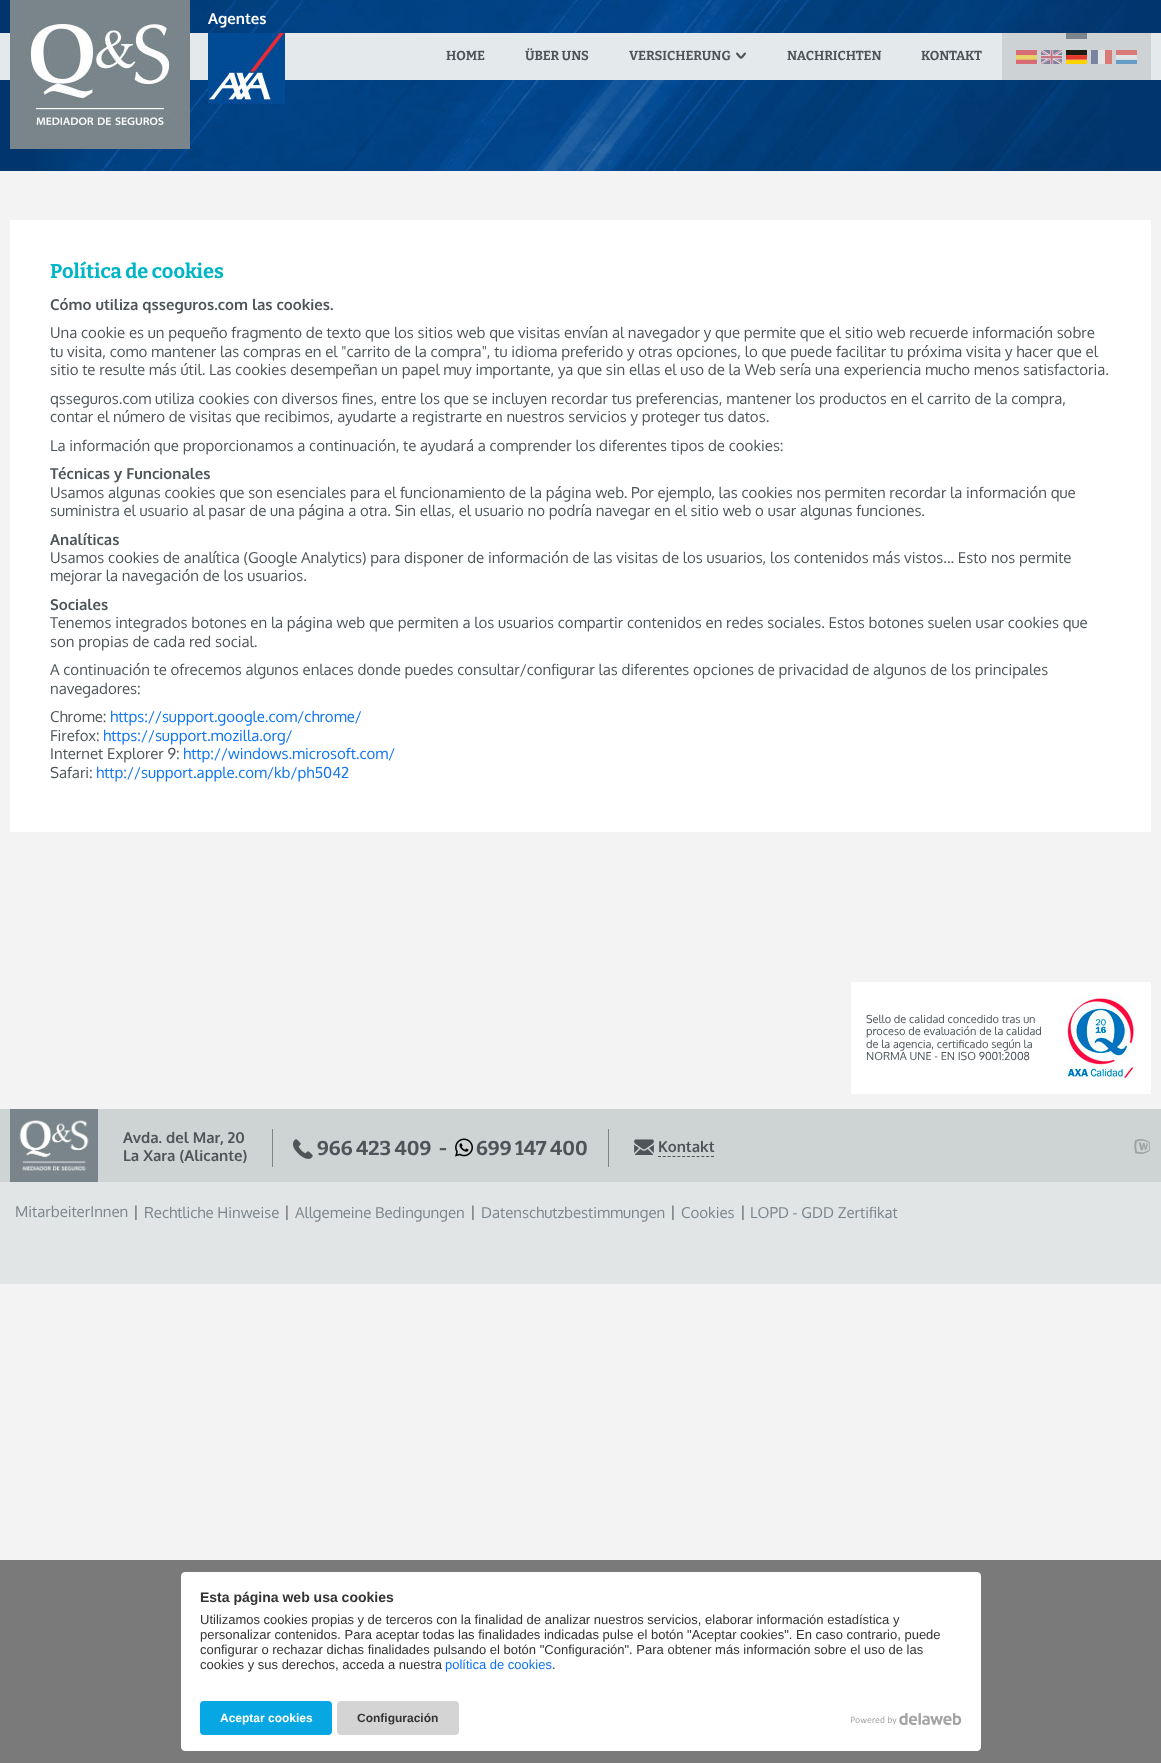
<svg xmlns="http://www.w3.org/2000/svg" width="1161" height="1763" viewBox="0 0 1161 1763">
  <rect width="100%" height="100%" fill="rgb(243,243,243)"/>
  <rect x="0" y="0" width="1161" height="171" fill="rgb(0,54,109)"/>
  <image x="36" y="0" width="1090" height="171" href="pic1.png"/>
  <rect x="0" y="33" width="1161" height="47" fill="rgb(228,233,235)"/>
  <image x="10" y="0" width="180" height="149" href="pic2.png"/>
  <text x="208" y="24" font-family="Oxygen" font-size="15" font-weight="bold" fill="rgb(255,255,255)">Agentes</text>
  <image x="208" y="33" width="77" height="71" href="pic3.png"/>
  <g font-family="Bitter" font-size="13" font-weight="bold" fill="rgb(77,85,89)">
    <text x="446" y="60">HOME</text>
    <text x="525" y="60">ÜBER UNS</text>
    <text x="629" y="60">VERSICHERUNG</text>
  </g>
  <image x="736" y="52" width="10" height="7" href="pic4.png"/>
  <g font-family="Bitter" font-size="13" font-weight="bold" fill="rgb(77,85,89)">
    <text x="787" y="60">NACHRICHTEN</text>
    <text x="921" y="60">KONTAKT</text>
  </g>
  <rect x="1002" y="33" width="149" height="47" fill="rgb(205,210,212)"/>
  <image x="1016" y="50" width="21" height="14" href="pic5.png"/>
  <image x="1041" y="50" width="21" height="14" href="pic6.png"/>
  <image x="1066" y="50" width="21" height="14" href="pic7.png"/>
  <rect x="1066" y="33" width="21" height="6" fill="rgb(122,134,140)"/>
  <image x="1091" y="50" width="21" height="14" href="pic8.png"/>
  <image x="1116" y="50" width="21" height="14" href="pic9.png"/>
  <rect x="10" y="220" width="1141" height="612" fill="rgb(255,255,255)"/>
  <text x="50" y="278" font-family="Bitter" font-size="20" font-weight="bold" fill="rgb(0,181,197)">Política de cookies</text>
  <text x="50" y="310" font-family="Oxygen" font-size="15" font-weight="bold" fill="rgb(77,85,89)">Cómo utiliza qsseguros.com las cookies.</text>
  <g font-family="Oxygen" font-size="15" fill="rgb(77,85,89)">
    <text>
      <tspan x="50" y="338">Una cookie es un pequeño fragmento de texto que los sitios web que visitas envían al navegador y que permite que el sitio web recuerde información sobre</tspan>
      <tspan x="50" y="357">tu visita, como mantener las compras en el "carrito de la compra", tu idioma preferido y otras opciones, lo que puede facilitar tu próxima visita y hacer que el</tspan>
      <tspan x="50" y="375">sitio te resulte más útil. Las cookies desempeñan un papel muy importante, ya que sin ellas el uso de la Web sería una experiencia mucho menos satisfactoria.</tspan>
      <tspan x="50" y="404">qsseguros.com utiliza cookies con diversos fines, entre los que se incluyen recordar tus preferencias, mantener los productos en el carrito de la compra,</tspan>
      <tspan x="50" y="422">contar el número de visitas que recibimos, ayudarte a registrarte en nuestros servicios y proteger tus datos.</tspan>
      <tspan x="50" y="451">La información que proporcionamos a continuación, te ayudará a comprender los diferentes tipos de cookies:</tspan>
    </text>
  </g>
  <text x="50" y="479" font-family="Oxygen" font-size="15" font-weight="bold" fill="rgb(77,85,89)">Técnicas y Funcionales</text>
  <g font-family="Oxygen" font-size="15" fill="rgb(77,85,89)">
    <text>
      <tspan x="50" y="498">Usamos algunas cookies que son esenciales para el funcionamiento de la página web. Por ejemplo, las cookies nos permiten recordar la información que</tspan>
      <tspan x="50" y="516">suministra el usuario al pasar de una página a otra. Sin ellas, el usuario no podría navegar en el sitio web o usar algunas funciones.</tspan>
    </text>
  </g>
  <text x="50" y="545" font-family="Oxygen" font-size="15" font-weight="bold" fill="rgb(77,85,89)">Analíticas</text>
  <g font-family="Oxygen" font-size="15" fill="rgb(77,85,89)">
    <text>
      <tspan x="50" y="563">Usamos cookies de analítica (Google Analytics) para disponer de información de las visitas de los usuarios, los contenidos más vistos... Esto nos permite</tspan>
      <tspan x="50" y="581">mejorar la navegación de los usuarios.</tspan>
    </text>
  </g>
  <text x="50" y="610" font-family="Oxygen" font-size="15" font-weight="bold" fill="rgb(77,85,89)">Sociales</text>
  <g font-family="Oxygen" font-size="15" fill="rgb(77,85,89)">
    <text>
      <tspan x="50" y="628">Tenemos integrados botones en la página web que permiten a los usuarios compartir contenidos en redes sociales. Estos botones suelen usar cookies que</tspan>
      <tspan x="50" y="647">son propias de cada red social.</tspan>
      <tspan x="50" y="675">A continuación te ofrecemos algunos enlaces donde puedes consultar/configurar las diferentes opciones de privacidad de algunos de los principales</tspan>
      <tspan x="50" y="694">navegadores:</tspan>
      <tspan x="50" y="722">Chrome:</tspan>
    </text>
  </g>
  <text x="110" y="722" font-family="Oxygen" font-size="15" fill="rgb(13,115,240)">https://support.google.com/chrome/</text>
  <text x="50" y="741" font-family="Oxygen" font-size="15" fill="rgb(77,85,89)">Firefox:</text>
  <text x="103" y="741" font-family="Oxygen" font-size="15" fill="rgb(13,115,240)">https://support.mozilla.org/</text>
  <text x="50" y="759" font-family="Oxygen" font-size="15" fill="rgb(77,85,89)">Internet Explorer 9:</text>
  <text x="183" y="759" font-family="Oxygen" font-size="15" fill="rgb(13,115,240)">http://windows.microsoft.com/</text>
  <text x="50" y="778" font-family="Oxygen" font-size="15" fill="rgb(77,85,89)">Safari:</text>
  <text x="96" y="778" font-family="Oxygen" font-size="15" fill="rgb(13,115,240)">http://support.apple.com/kb/ph5042</text>
  <rect x="851" y="982" width="300" height="112" fill="rgb(255,255,255)"/>
  <g font-family="Oxygen" font-size="11" fill="rgb(77,85,89)">
    <text>
      <tspan x="866" y="1023">Sello de calidad concedido tras un</tspan>
      <tspan x="866" y="1035">proceso de evaluación de la calidad</tspan>
      <tspan x="866" y="1048">de la agencia, certificado según la</tspan>
      <tspan x="866" y="1060">NORMA UNE - EN ISO 9001:2008</tspan>
    </text>
  </g>
  <image x="1066" y="997" width="70" height="82" href="pic10.png"/>
  <rect x="0" y="1109" width="1161" height="73" fill="rgb(206,211,212)"/>
  <image x="10" y="1109" width="88" height="73" href="pic11.png"/>
  <g font-family="Oxygen" font-size="15" font-weight="bold" fill="rgb(77,85,89)">
    <text>
      <tspan x="123" y="1143">Avda. del Mar, 20</tspan>
      <tspan x="123" y="1161">La Xara (Alicante)</tspan>
    </text>
  </g>
  <rect x="608" y="1129" width="1" height="38" fill="rgb(122,134,140)"/>
  <rect x="272" y="1129" width="1" height="38" fill="rgb(122,134,140)"/>
  <image x="293" y="1139" width="20" height="20" href="pic12.png"/>
  <text x="317" y="1155" font-family="Bitter" font-size="20" font-weight="bold" fill="rgb(77,85,89)" xml:space="preserve">966 423 409  -</text>
  <image x="455" y="1138" width="18" height="19" href="pic13.png"/>
  <text x="476" y="1155" font-family="Bitter" font-size="20" font-weight="bold" fill="rgb(77,85,89)">699 147 400</text>
  <image x="634" y="1139" width="20" height="16" href="pic14.png"/>
  <text x="658" y="1152" font-family="Oxygen" font-size="15" font-weight="bold" fill="rgb(77,85,89)">Kontakt</text>
  <path d="M658 1156.5H714" fill="none" stroke="rgb(77,85,89)" stroke-dasharray="3 1.82"/>
  <image x="1134" y="1139" width="16" height="15" href="pic15.png"/>
  <rect x="0" y="1182" width="1161" height="102" fill="rgb(225,229,230)"/>
  <text x="15" y="1217" font-family="Oxygen" font-size="15" fill="rgb(122,134,140)">MitarbeiterInnen</text>
  <text x="133" y="1217" font-family="Oxygen" font-size="15" fill="rgb(77,85,89)">|</text>
  <text x="144" y="1218" font-family="Oxygen" font-size="15" fill="rgb(122,134,140)">Rechtliche Hinweise</text>
  <text x="284" y="1217" font-family="Oxygen" font-size="15" fill="rgb(77,85,89)">|</text>
  <text x="295" y="1218" font-family="Oxygen" font-size="15" fill="rgb(122,134,140)">Allgemeine Bedingungen</text>
  <text x="470" y="1217" font-family="Oxygen" font-size="15" fill="rgb(77,85,89)">|</text>
  <text x="481" y="1218" font-family="Oxygen" font-size="15" fill="rgb(122,134,140)">Datenschutzbestimmungen</text>
  <text x="670" y="1217" font-family="Oxygen" font-size="15" fill="rgb(77,85,89)">|</text>
  <text x="681" y="1218" font-family="Oxygen" font-size="15" fill="rgb(122,134,140)">Cookies</text>
  <text x="740" y="1217" font-family="Oxygen" font-size="15" fill="rgb(77,85,89)">|</text>
  <text x="750" y="1218" font-family="Oxygen" font-size="15" fill="rgb(122,134,140)">LOPD - GDD Zertifikat</text>
  <rect x="0" y="1560" width="1161" height="203" fill="rgb(122,122,122)"/>
  <rect x="181.5" y="1572.5" width="799" height="178" rx="3.5" fill="rgb(255,255,255)" stroke="rgb(255,255,255)"/>
  <text x="200" y="1602" font-family="Liberation Sans" font-size="14" font-weight="bold" fill="rgb(51,51,51)">Esta página web usa cookies</text>
  <g font-family="Liberation Sans" font-size="13" fill="rgb(51,51,51)">
    <text>
      <tspan x="200" y="1624">Utilizamos cookies propias y de terceros con la finalidad de analizar nuestros servicios, elaborar información estadística y</tspan>
      <tspan x="200" y="1639">personalizar contenidos. Para aceptar todas las finalidades indicadas pulse el botón "Aceptar cookies". En caso contrario, puede</tspan>
      <tspan x="200" y="1654">configurar o rechazar dichas finalidades pulsando el botón "Configuración". Para obtener más información sobre el uso de las</tspan>
      <tspan x="200" y="1669">cookies y sus derechos, acceda a nuestra</tspan>
    </text>
  </g>
  <text x="445" y="1669" font-family="Liberation Sans" font-size="13" fill="rgb(13,115,240)">política de cookies</text>
  <text x="552" y="1669" font-family="Liberation Sans" font-size="13" fill="rgb(51,51,51)">.</text>
  <rect x="200" y="1701" width="132" height="34" rx="4" fill="rgb(6,167,226)"/>
  <text x="220" y="1722" font-family="Liberation Sans" font-size="12" font-weight="bold" fill="rgb(255,255,255)">Aceptar cookies</text>
  <rect x="337" y="1701" width="122" height="34" rx="4" fill="rgb(212,212,212)"/>
  <text x="357" y="1722" font-family="Liberation Sans" font-size="12" font-weight="bold" fill="rgb(51,51,51)">Configuración</text>
  <image x="851" y="1713" width="111" height="12" href="pic16.png"/>
</svg>
